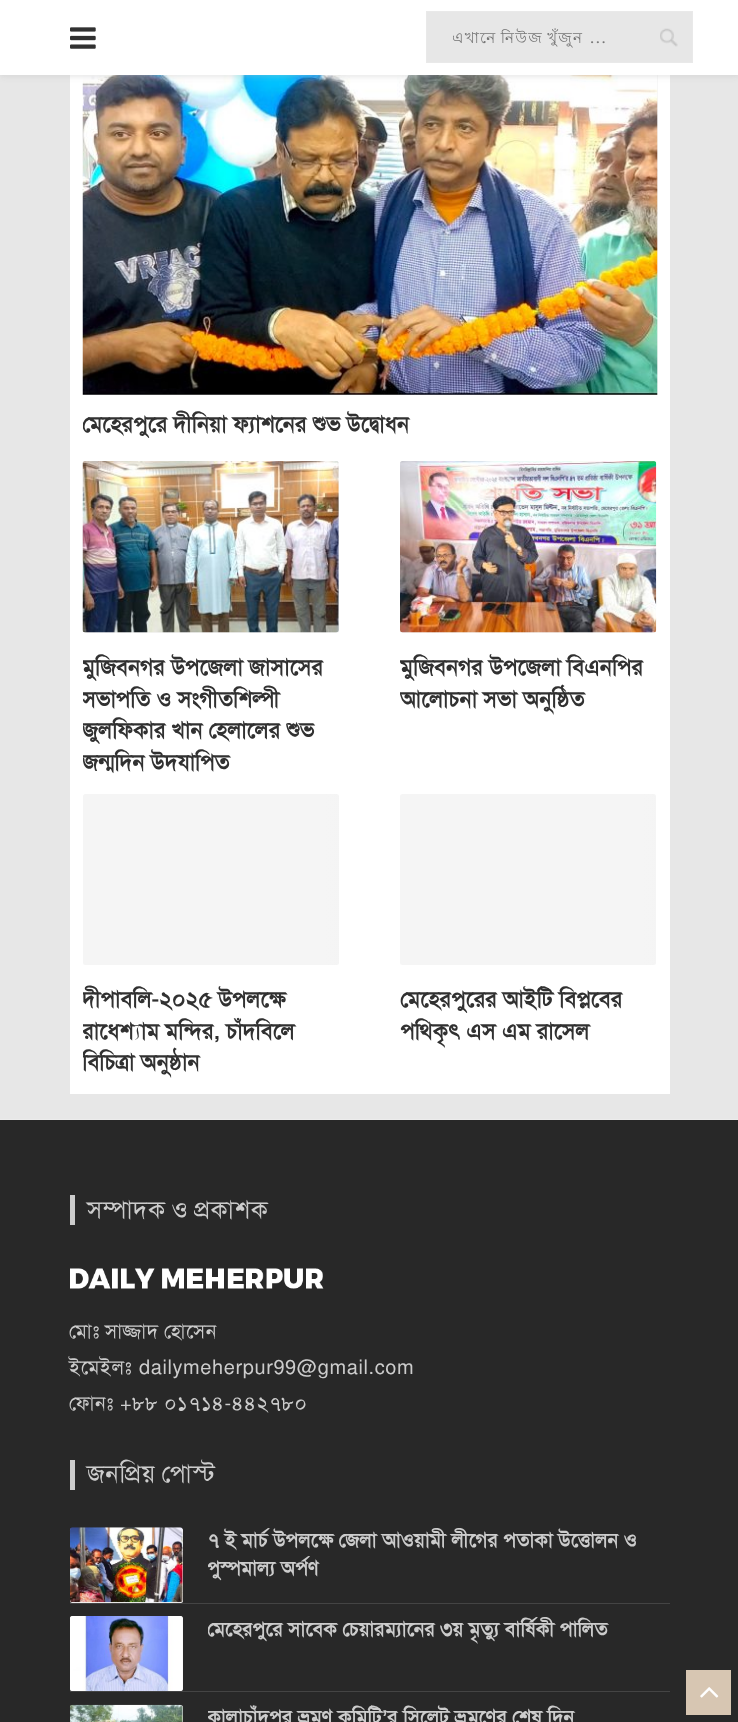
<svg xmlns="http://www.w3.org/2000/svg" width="738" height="1722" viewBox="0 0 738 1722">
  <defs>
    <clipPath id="clip1"><rect x="453" y="26" width="188" height="25"/></clipPath>
    <clipPath id="clip2"><rect x="83" y="410" width="575" height="39"/></clipPath>
    <clipPath id="clip3"><rect x="83" y="653" width="256" height="128"/></clipPath>
    <clipPath id="clip4"><rect x="400" y="653" width="256" height="65"/></clipPath>
    <linearGradient id="g1" gradientUnits="userSpaceOnUse" x1="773" y1="879" x2="-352" y2="879"><stop offset="0" stop-color="rgb(245,245,245)"/><stop offset="0.15" stop-color="rgb(239,239,239)"/><stop offset="0.4" stop-color="rgb(245,245,245)"/><stop offset="1" stop-color="rgb(245,245,245)"/></linearGradient>
    <clipPath id="clip5"><rect x="83" y="985" width="256" height="96"/></clipPath>
    <linearGradient id="g2" gradientUnits="userSpaceOnUse" x1="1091" y1="879" x2="-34" y2="879"><stop offset="0" stop-color="rgb(245,245,245)"/><stop offset="0.15" stop-color="rgb(239,239,239)"/><stop offset="0.4" stop-color="rgb(245,245,245)"/><stop offset="1" stop-color="rgb(245,245,245)"/></linearGradient>
    <clipPath id="clip6"><rect x="400" y="985" width="256" height="65"/></clipPath>
    <clipPath id="clip7"><rect x="208" y="1528" width="462" height="62"/></clipPath>
    <clipPath id="clip8"><rect x="208" y="1616" width="462" height="35"/></clipPath>
    <clipPath id="clip9"><rect x="208" y="1705" width="462" height="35"/></clipPath>
  </defs>
  <rect width="100%" height="100%" fill="rgb(231,231,231)"/>
  <rect x="70" y="75" width="600" height="1019" fill="rgb(255,255,255)"/>
  <rect x="83" y="75" width="575" height="320" fill="rgb(245,245,245)"/>
  <image x="82" y="75" width="576" height="320" href="pic3.png"/>
  <rect x="0" y="1" width="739" height="75" fill="rgba(190,190,190,0.46)" filter="blur(3px)"/>
  <rect x="0" y="0" width="738" height="75" fill="rgb(255,255,255)"/>
  <image x="70" y="27" width="26" height="22" href="pic1.png"/>
  <rect x="427" y="12" width="265" height="50" fill="rgb(231,231,231)"/>
  <image x="660" y="28" width="18" height="19" href="pic2.png"/>
  <rect x="426.5" y="11.5" width="266" height="51" fill="none" stroke="rgb(233,233,233)"/>
  <g clip-path="url(#clip1)">
    <text x="452" y="43" word-spacing="-1" font-family="Lohit Bengali" font-size="15" letter-spacing="1.25" fill="rgb(117,117,117)">এখানে নিউজ খুঁজুন</text>
  </g>
  <text x="590" y="43" font-family="PT Serif" font-size="15" letter-spacing="1.25" fill="rgb(117,117,117)">...</text>
  <g clip-path="url(#clip2)">
    <text x="82" y="432" font-family="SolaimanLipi" font-size="22.5" font-weight="bold" fill="rgb(49,49,49)">মেহেরপুরে দীনিয়া ফ্যাশনের শুভ উদ্বোধন</text>
  </g>
  <rect x="83" y="461" width="256" height="172" rx="2.5" fill="rgb(245,245,245)"/>
  <image x="82" y="461" width="257" height="172" href="pic4.png"/>
  <g clip-path="url(#clip3)">
    <g font-family="SolaimanLipi" font-size="22.5" font-weight="bold" fill="rgb(49,49,49)">
      <text>
        <tspan x="82" y="675">মুজিবনগর উপজেলা জাসাসের</tspan>
        <tspan x="82" y="707">সভাপতি ও সংগীতশিল্পী</tspan>
        <tspan x="82" y="738">জুলফিকার খান হেলালের শুভ</tspan>
        <tspan x="82" y="770">জন্মদিন উদযাপিত</tspan>
      </text>
    </g>
  </g>
  <rect x="400" y="461" width="256" height="172" rx="2.5" fill="rgb(245,245,245)"/>
  <image x="400" y="461" width="257" height="172" href="pic5.png"/>
  <g clip-path="url(#clip4)">
    <g font-family="SolaimanLipi" font-size="22.5" font-weight="bold" fill="rgb(49,49,49)">
      <text>
        <tspan x="400" y="675">মুজিবনগর উপজেলা বিএনপির</tspan>
        <tspan x="400" y="707">আলোচনা সভা অনুষ্ঠিত</tspan>
      </text>
    </g>
  </g>
  <rect x="83" y="794" width="256" height="171" rx="2.5" fill="url(#g1)"/>
  <g clip-path="url(#clip5)">
    <g font-family="SolaimanLipi" font-size="22.5" font-weight="bold" fill="rgb(49,49,49)">
      <text>
        <tspan x="82" y="1007">দীপাবলি-২০২৫ উপলক্ষে</tspan>
        <tspan x="82" y="1039">রাধেশ্যাম মন্দির, চাঁদবিলে</tspan>
        <tspan x="82" y="1070">বিচিত্রা অনুষ্ঠান</tspan>
      </text>
    </g>
  </g>
  <rect x="400" y="794" width="256" height="171" rx="2.5" fill="url(#g2)"/>
  <g clip-path="url(#clip6)">
    <text x="400" y="1007" font-family="SolaimanLipi" font-size="22.5" font-weight="bold" fill="rgb(49,49,49)">মেহেরপুরের আইটি বিপ্লবের</text>
  </g>
  <text x="400" y="1039" font-family="SolaimanLipi" font-size="22.5" font-weight="bold" fill="rgb(49,49,49)">পথিকৃৎ এস এম রাসেল</text>
  <rect x="0" y="1120" width="738" height="602" fill="rgb(40,40,40)"/>
  <rect x="0" y="1119" width="738" height="1" fill="rgb(236,236,236)"/>
  <rect x="70" y="1195" width="5" height="30" fill="rgb(204,204,204)"/>
  <text x="87" y="1218" word-spacing="-2" font-family="SolaimanLipi" font-size="25" letter-spacing="0.6" fill="rgb(204,204,204)">সম্পাদক ও প্রকাশক</text>
  <image x="70" y="1268" width="254" height="21" href="pic6.png"/>
  <g font-family="SolaimanLipi" font-size="20" letter-spacing="0.6" fill="rgb(204,204,204)">
    <text>
      <tspan x="69" y="1338" word-spacing="-1">মোঃ সাজ্জাদ হোসেন</tspan>
      <tspan x="69" y="1374">ইমেইলঃ</tspan>
    </text>
    <text x="139" y="1374">dailymeherpur99@gmail.com</text>
    <text x="69" y="1410">ফোনঃ</text>
    <text x="120" y="1410">+৮৮ ০১৭১৪-৪৪২৭৮০</text>
  </g>
  <rect x="70" y="1460" width="5" height="30" fill="rgb(204,204,204)"/>
  <text x="87" y="1482" word-spacing="-2" font-family="SolaimanLipi" font-size="25" letter-spacing="0.6" fill="rgb(204,204,204)">জনপ্রিয় পোস্ট</text>
  <rect x="70" y="1603" width="600" height="1" fill="rgb(68,68,68)"/>
  <rect x="70" y="1528" width="113" height="75" rx="2.5" fill="rgb(245,245,245)"/>
  <image x="70" y="1527" width="113" height="76" href="pic7.png"/>
  <text x="207" y="1547" font-family="SolaimanLipi" font-size="20" font-weight="bold" fill="rgb(204,204,204)">৭ ই মার্চ উপলক্ষে জেলা আওয়ামী লীগের পতাকা উত্তোলন ও</text>
  <g clip-path="url(#clip7)">
    <text x="207" y="1575" font-family="SolaimanLipi" font-size="20" font-weight="bold" fill="rgb(204,204,204)">পুস্পমাল্য অর্পণ</text>
  </g>
  <rect x="70" y="1691" width="600" height="1" fill="rgb(68,68,68)"/>
  <rect x="70" y="1616" width="113" height="75" rx="2.5" fill="rgb(245,245,245)"/>
  <image x="70" y="1616" width="113" height="75" href="pic8.png"/>
  <g clip-path="url(#clip8)">
    <text x="207" y="1636" font-family="SolaimanLipi" font-size="20" font-weight="bold" fill="rgb(204,204,204)">মেহেরপুরে সাবেক চেয়ারম্যানের ৩য় মৃত্যু বার্ষিকী পালিত</text>
  </g>
  <rect x="70" y="1705" width="113" height="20" rx="2.5" fill="rgb(245,245,245)"/>
  <image x="70" y="1704" width="113" height="18" href="pic9.png"/>
  <g clip-path="url(#clip9)">
    <text x="207" y="1724" font-family="SolaimanLipi" font-size="20" font-weight="bold" fill="rgb(204,204,204)">কালাচাঁদপুর ভ্রমণ কমিটি</text>
  </g>
  <text x="382" y="1724" font-family="Liberation Sans" font-size="20" font-weight="bold" fill="rgb(204,204,204)">’</text>
  <text x="387" y="1724" font-family="SolaimanLipi" font-size="20" font-weight="bold" fill="rgb(204,204,204)">র সিলেট ভ্রমণের শেষ দিন</text>
  <rect x="686" y="1670" width="45" height="45" fill="rgb(215,198,178)"/>
  <image x="700" y="1687" width="19" height="11" href="pic10.png"/>
</svg>
